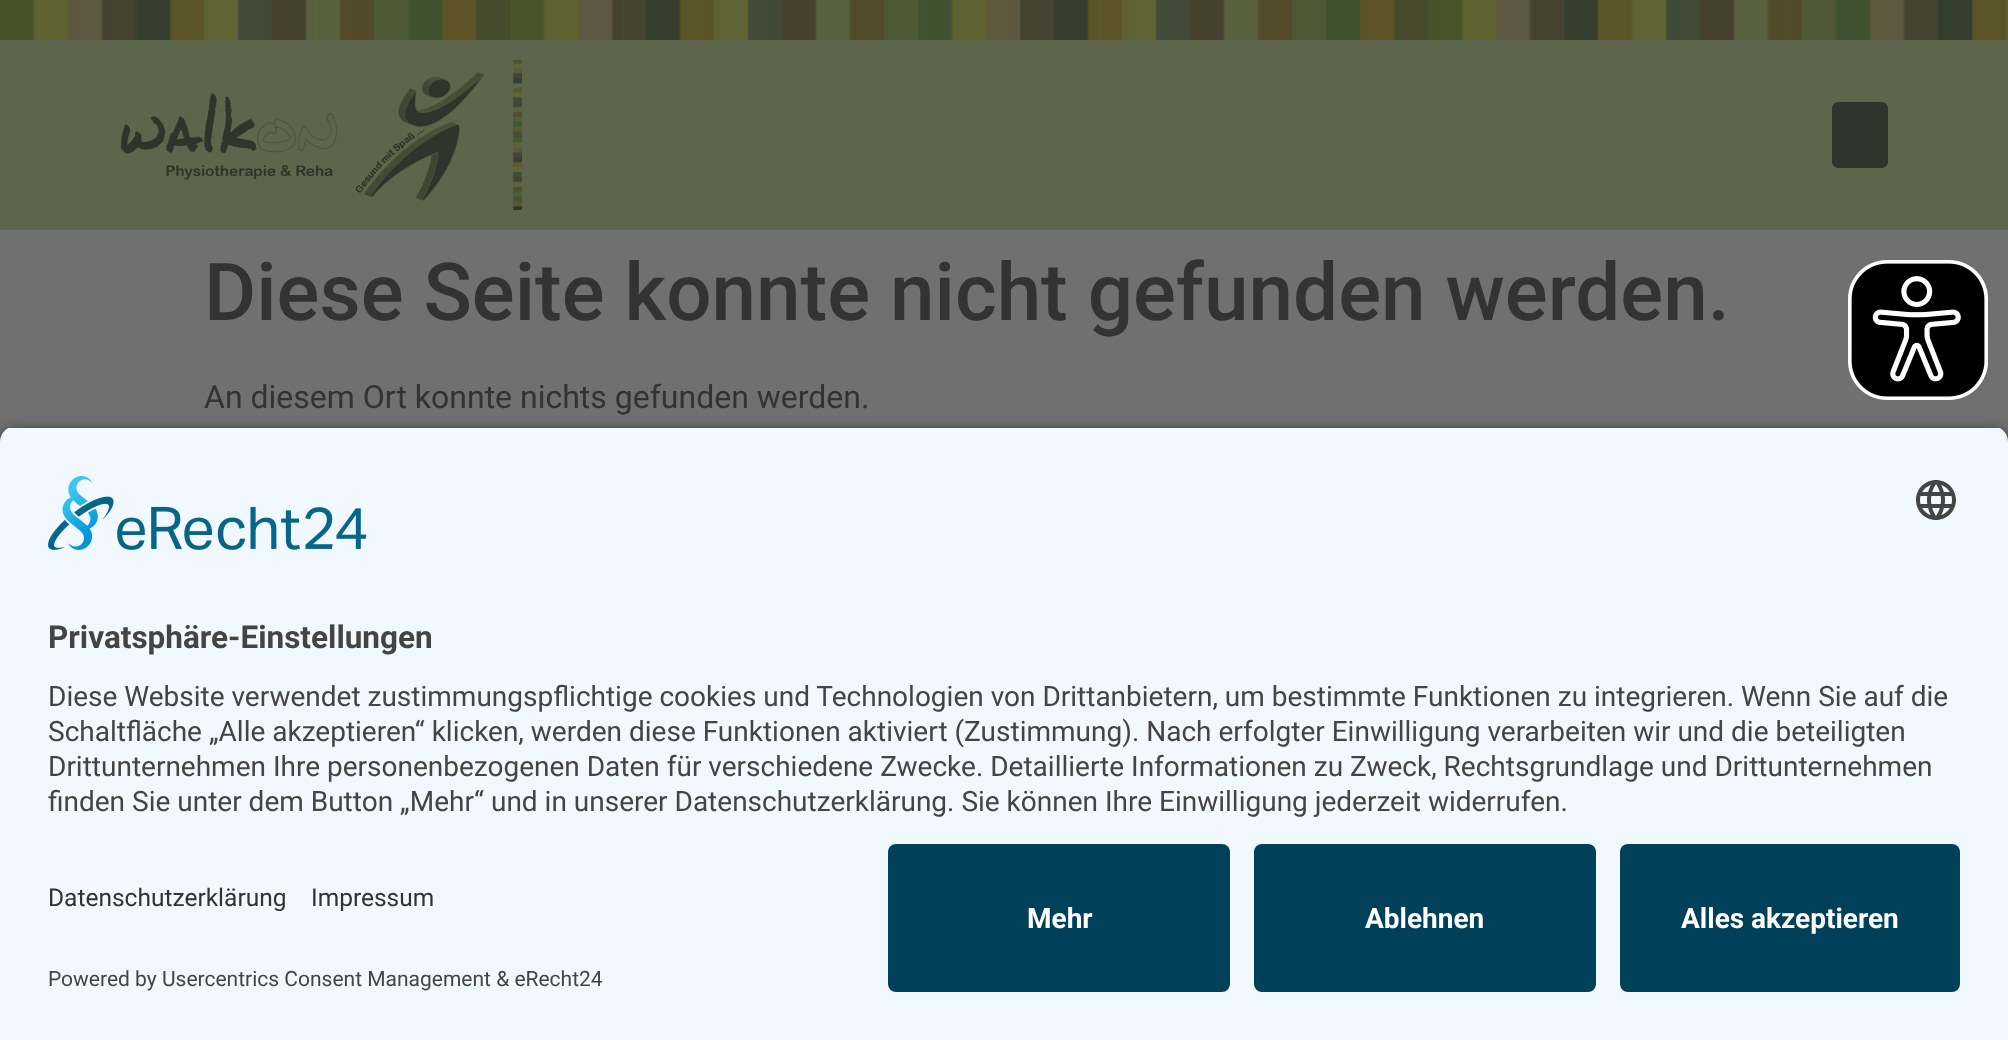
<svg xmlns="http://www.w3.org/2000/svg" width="2008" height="1040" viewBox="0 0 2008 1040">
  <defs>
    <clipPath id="clip1"><path d="M16 426H1992C2001 426 2008 433 2008 442V828H0V442C0 433 7 426 16 426Z"/></clipPath>
  </defs>
  <rect width="100%" height="100%" fill="rgb(112,112,112)"/>
  <image x="0" y="0" width="2008" height="40" href="pic1.png"/>
  <rect x="0" y="40" width="2008" height="190" fill="rgb(93,102,76)"/>
  <image x="120" y="60" width="402" height="150" href="pic2.png"/>
  <rect x="1832" y="102" width="56" height="66" rx="6" fill="rgb(46,53,43)"/>
  <text x="204" y="320" font-family="Roboto" font-size="80" font-weight="500" fill="rgb(51,51,51)">Diese Seite konnte nicht gefunden werden.</text>
  <text x="204" y="408" font-family="Roboto" font-size="32" fill="rgb(51,51,51)">An diesem Ort konnte nichts gefunden werden.</text>
  <image x="1848" y="260" width="140" height="140" href="pic3.png"/>
  <rect x="0" y="432" width="2008" height="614" rx="16" fill="rgba(0,0,0,0.8)" filter="blur(7px)"/>
  <g clip-path="url(#clip1)">
    <rect x="0" y="428" width="2008" height="400" fill="rgb(241,248,255)"/>
  </g>
  <image x="48" y="476" width="319" height="74" href="pic4.png"/>
  <image x="1916" y="480" width="40" height="40" href="pic5.png"/>
  <text x="48" y="648" font-family="Roboto" font-size="31.5" font-weight="bold" fill="rgb(68,68,68)">Privatsphäre-Einstellungen</text>
  <g font-family="Roboto" font-size="28" fill="rgb(68,68,68)">
    <text>
      <tspan x="48" y="706">Diese Website verwendet zustimmungspflichtige cookies und Technologien von Drittanbietern, um bestimmte Funktionen zu integrieren. Wenn Sie auf die</tspan>
      <tspan x="48" y="741">Schaltfläche „Alle akzeptieren“ klicken, werden diese Funktionen aktiviert (Zustimmung). Nach erfolgter Einwilligung verarbeiten wir und die beteiligten</tspan>
      <tspan x="48" y="776">Drittunternehmen Ihre personenbezogenen Daten für verschiedene Zwecke. Detaillierte Informationen zu Zweck, Rechtsgrundlage und Drittunternehmen</tspan>
      <tspan x="48" y="811">finden Sie unter dem Button „Mehr“ und in unserer Datenschutzerklärung. Sie können Ihre Einwilligung jederzeit widerrufen.</tspan>
    </text>
  </g>
  <rect x="0" y="828" width="2008" height="212" fill="rgb(241,248,255)"/>
  <g font-family="Roboto" font-size="24.5" fill="rgb(51,51,51)">
    <text x="48" y="906">Datenschutzerklärung</text>
    <text x="311" y="906">Impressum</text>
  </g>
  <text x="48" y="986" font-family="Roboto" font-size="21" fill="rgb(68,68,68)">Powered by Usercentrics Consent Management &amp; eRecht24</text>
  <rect x="888" y="844" width="342" height="148" rx="8" fill="rgb(0,64,89)"/>
  <text x="1027" y="928" font-family="Roboto" font-size="28" font-weight="bold" fill="rgb(255,255,255)">Mehr</text>
  <rect x="1254" y="844" width="342" height="148" rx="8" fill="rgb(0,64,89)"/>
  <text x="1365" y="928" font-family="Roboto" font-size="28" font-weight="bold" fill="rgb(255,255,255)">Ablehnen</text>
  <rect x="1620" y="844" width="340" height="148" rx="8" fill="rgb(0,64,89)"/>
  <text x="1681" y="928" font-family="Roboto" font-size="28" font-weight="bold" fill="rgb(255,255,255)">Alles akzeptieren</text>
</svg>
